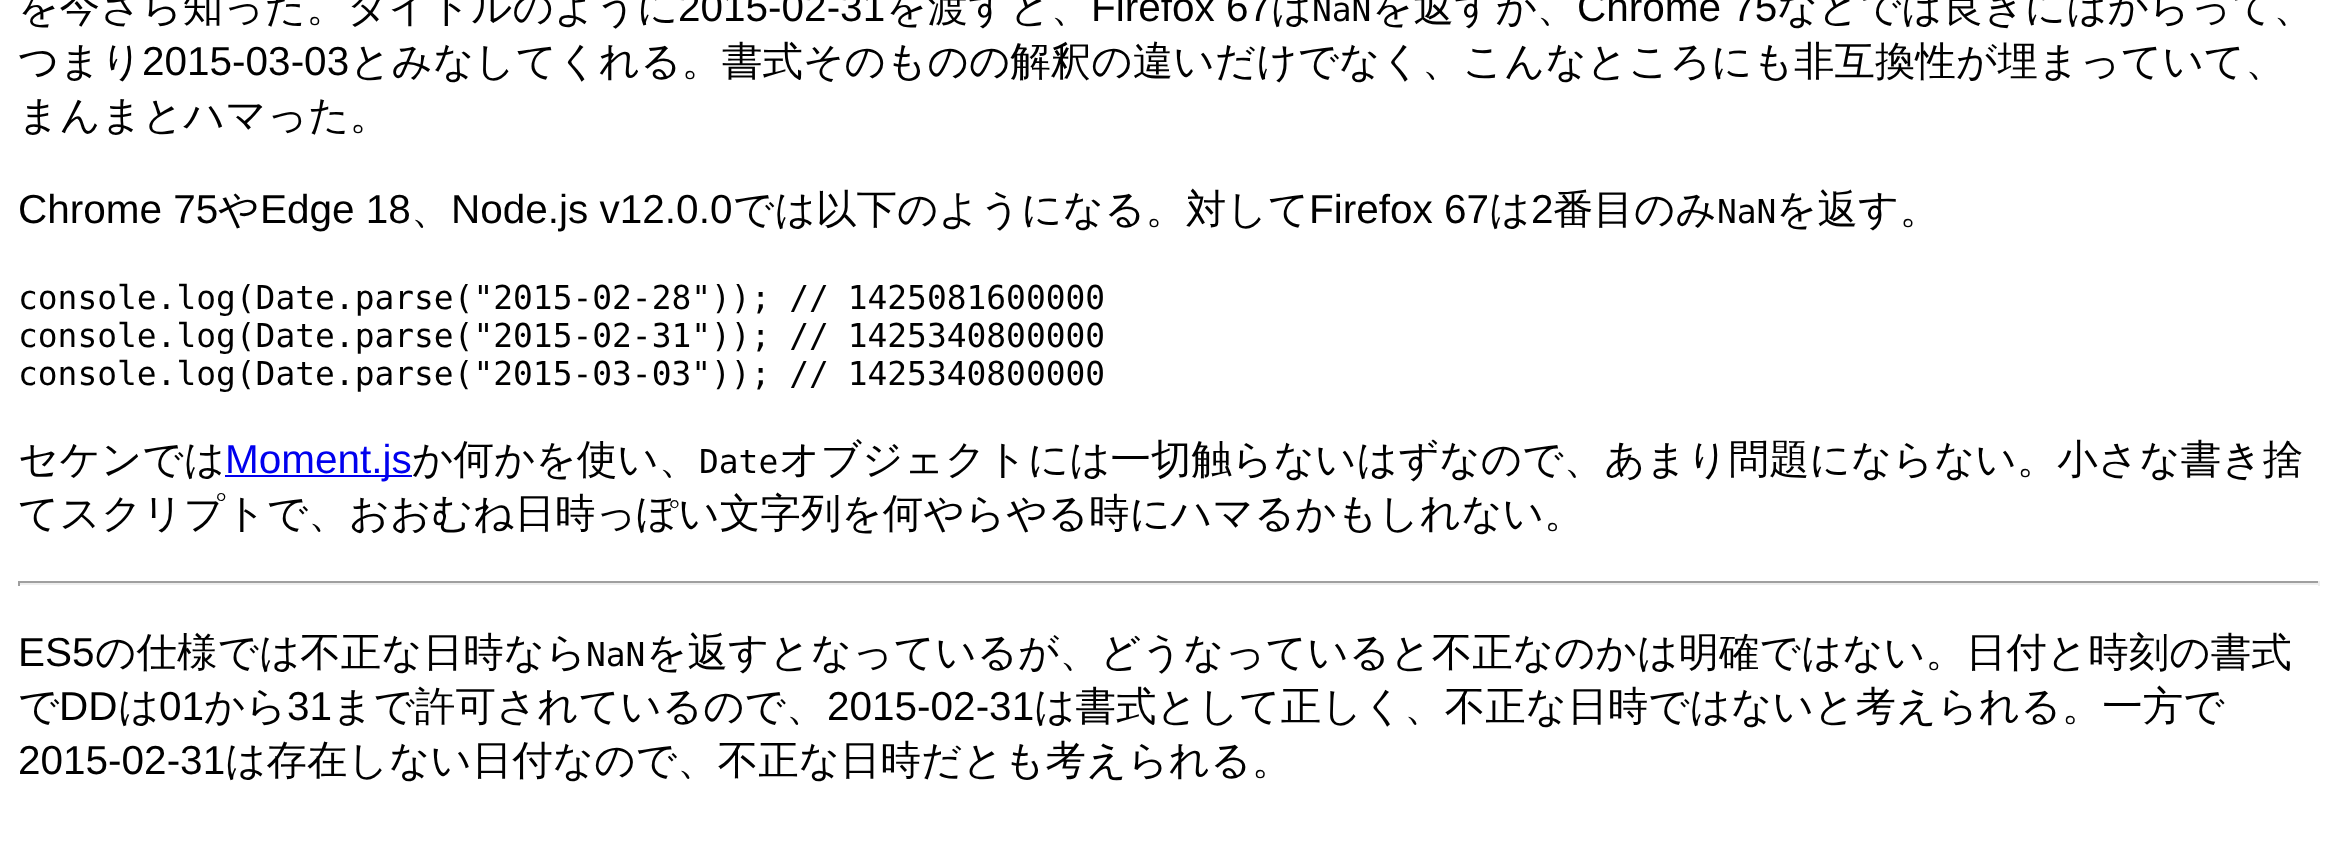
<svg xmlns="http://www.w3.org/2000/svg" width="2337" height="853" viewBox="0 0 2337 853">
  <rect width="100%" height="100%" fill="rgb(255,255,255)"/>
  <text x="18" y="21" font-family="WenQuanYi Zen Hei" font-size="40.5" font-weight="500" fill="rgb(0,0,0)">を今さら知った。タイトルのように</text>
  <text x="678" y="21" font-family="Liberation Sans" font-size="40.5" fill="rgb(0,0,0)">2015-02-31</text>
  <text x="886" y="21" font-family="WenQuanYi Zen Hei" font-size="40.5" font-weight="500" fill="rgb(0,0,0)">を渡すと、</text>
  <text x="1091" y="21" font-family="Liberation Sans" font-size="40.5" fill="rgb(0,0,0)">Firefox 67</text>
  <text x="1271" y="21" font-family="WenQuanYi Zen Hei" font-size="40.5" font-weight="500" fill="rgb(0,0,0)">は</text>
  <text x="1312" y="21" font-family="DejaVu Sans Mono" font-size="32.9" fill="rgb(0,0,0)">NaN</text>
  <text x="1372" y="21" font-family="WenQuanYi Zen Hei" font-size="40.5" font-weight="500" fill="rgb(0,0,0)">を返すが、</text>
  <text x="1577" y="21" font-family="Liberation Sans" font-size="40.5" fill="rgb(0,0,0)">Chrome 75</text>
  <g font-family="WenQuanYi Zen Hei" font-size="40.5" font-weight="500" fill="rgb(0,0,0)">
    <text x="1777" y="21">などでは良きにはからって、</text>
    <text x="18" y="75">つまり</text>
  </g>
  <text x="142" y="75" font-family="Liberation Sans" font-size="40.5" fill="rgb(0,0,0)">2015-03-03</text>
  <g font-family="WenQuanYi Zen Hei" font-size="40.5" font-weight="500" fill="rgb(0,0,0)">
    <text x="350" y="75">とみなしてくれる。書式そのものの解釈の違いだけでなく、こんなところにも非互換性が埋まっていて、</text>
    <text x="18" y="129">まんまとハマった。</text>
  </g>
  <text x="18" y="223" font-family="Liberation Sans" font-size="40.5" fill="rgb(0,0,0)">Chrome 75</text>
  <text x="218" y="223" font-family="WenQuanYi Zen Hei" font-size="40.5" font-weight="500" fill="rgb(0,0,0)">や</text>
  <text x="260" y="223" font-family="Liberation Sans" font-size="40.5" fill="rgb(0,0,0)">Edge 18</text>
  <text x="411" y="223" font-family="WenQuanYi Zen Hei" font-size="40.5" font-weight="500" fill="rgb(0,0,0)">、</text>
  <text x="451" y="223" font-family="Liberation Sans" font-size="40.5" fill="rgb(0,0,0)">Node.js v12.0.0</text>
  <text x="733" y="223" font-family="WenQuanYi Zen Hei" font-size="40.5" font-weight="500" fill="rgb(0,0,0)">では以下のようになる。対して</text>
  <text x="1309" y="223" font-family="Liberation Sans" font-size="40.5" fill="rgb(0,0,0)">Firefox 67</text>
  <text x="1489" y="223" font-family="WenQuanYi Zen Hei" font-size="40.5" font-weight="500" fill="rgb(0,0,0)">は</text>
  <text x="1531" y="223" font-family="Liberation Sans" font-size="40.5" fill="rgb(0,0,0)">2</text>
  <text x="1553" y="223" font-family="WenQuanYi Zen Hei" font-size="40.5" font-weight="500" fill="rgb(0,0,0)">番目のみ</text>
  <text x="1717" y="223" font-family="DejaVu Sans Mono" font-size="32.9" fill="rgb(0,0,0)">NaN</text>
  <text x="1776" y="223" font-family="WenQuanYi Zen Hei" font-size="40.5" font-weight="500" fill="rgb(0,0,0)">を返す。</text>
  <g font-family="DejaVu Sans Mono" font-size="32.9" fill="rgb(0,0,0)">
    <text>
      <tspan x="18" y="309" word-spacing="-1">console.log(Date.parse("2015-02-28")); // 1425081600000</tspan>
      <tspan x="18" y="347" word-spacing="-1">console.log(Date.parse("2015-02-31")); // 1425340800000</tspan>
      <tspan x="18" y="385" word-spacing="-1">console.log(Date.parse("2015-03-03")); // 1425340800000</tspan>
    </text>
  </g>
  <text x="18" y="473" font-family="WenQuanYi Zen Hei" font-size="40.5" font-weight="500" fill="rgb(0,0,0)">セケンでは</text>
  <rect x="225" y="475" width="187" height="2" fill="rgb(0,0,238)"/>
  <text x="225" y="473" font-family="Liberation Sans" font-size="40.5" fill="rgb(0,0,238)">Moment.js</text>
  <text x="412" y="473" font-family="WenQuanYi Zen Hei" font-size="40.5" font-weight="500" fill="rgb(0,0,0)">か何かを使い、</text>
  <text x="699" y="473" font-family="DejaVu Sans Mono" font-size="32.9" fill="rgb(0,0,0)">Date</text>
  <g font-family="WenQuanYi Zen Hei" font-size="40.5" font-weight="500" fill="rgb(0,0,0)">
    <text x="779" y="473">オブジェクトには一切触らないはずなので、あまり問題にならない。小さな書き捨</text>
    <text x="18" y="527">てスクリプトで、おおむね日時っぽい文字列を何やらやる時にハマるかもしれない。</text>
  </g>
  <rect x="18" y="581" width="2302" height="2" fill="rgb(159,159,159)"/>
  <rect x="2318" y="581" width="2" height="5" fill="rgb(238,238,238)"/>
  <rect x="18" y="583" width="2302" height="2" fill="rgb(238,238,238)"/>
  <rect x="18" y="581" width="2" height="5" fill="rgb(159,159,159)"/>
  <text x="18" y="666" font-family="Liberation Sans" font-size="40.5" fill="rgb(0,0,0)">ES5</text>
  <text x="95" y="666" font-family="WenQuanYi Zen Hei" font-size="40.5" font-weight="500" fill="rgb(0,0,0)">の仕様では不正な日時なら</text>
  <text x="586" y="666" font-family="DejaVu Sans Mono" font-size="32.9" fill="rgb(0,0,0)">NaN</text>
  <g font-family="WenQuanYi Zen Hei" font-size="40.5" font-weight="500" fill="rgb(0,0,0)">
    <text x="646" y="666">を返すとなっているが、どうなっていると不正なのかは明確ではない。日付と時刻の書式</text>
    <text x="18" y="720">で</text>
  </g>
  <text x="59" y="720" font-family="Liberation Sans" font-size="40.5" fill="rgb(0,0,0)">DD</text>
  <text x="118" y="720" font-family="WenQuanYi Zen Hei" font-size="40.5" font-weight="500" fill="rgb(0,0,0)">は</text>
  <text x="159" y="720" font-family="Liberation Sans" font-size="40.5" fill="rgb(0,0,0)">01</text>
  <text x="204" y="720" font-family="WenQuanYi Zen Hei" font-size="40.5" font-weight="500" fill="rgb(0,0,0)">から</text>
  <text x="287" y="720" font-family="Liberation Sans" font-size="40.5" fill="rgb(0,0,0)">31</text>
  <text x="332" y="720" font-family="WenQuanYi Zen Hei" font-size="40.5" font-weight="500" fill="rgb(0,0,0)">まで許可されているので、</text>
  <text x="827" y="720" font-family="Liberation Sans" font-size="40.5" fill="rgb(0,0,0)">2015-02-31</text>
  <text x="1034" y="720" font-family="WenQuanYi Zen Hei" font-size="40.5" font-weight="500" fill="rgb(0,0,0)">は書式として正しく、不正な日時ではないと考えられる。一方で</text>
  <text x="18" y="774" font-family="Liberation Sans" font-size="40.5" fill="rgb(0,0,0)">2015-02-31</text>
  <text x="225" y="774" font-family="WenQuanYi Zen Hei" font-size="40.5" font-weight="500" fill="rgb(0,0,0)">は存在しない日付なので、不正な日時だとも考えられる。</text>
</svg>
